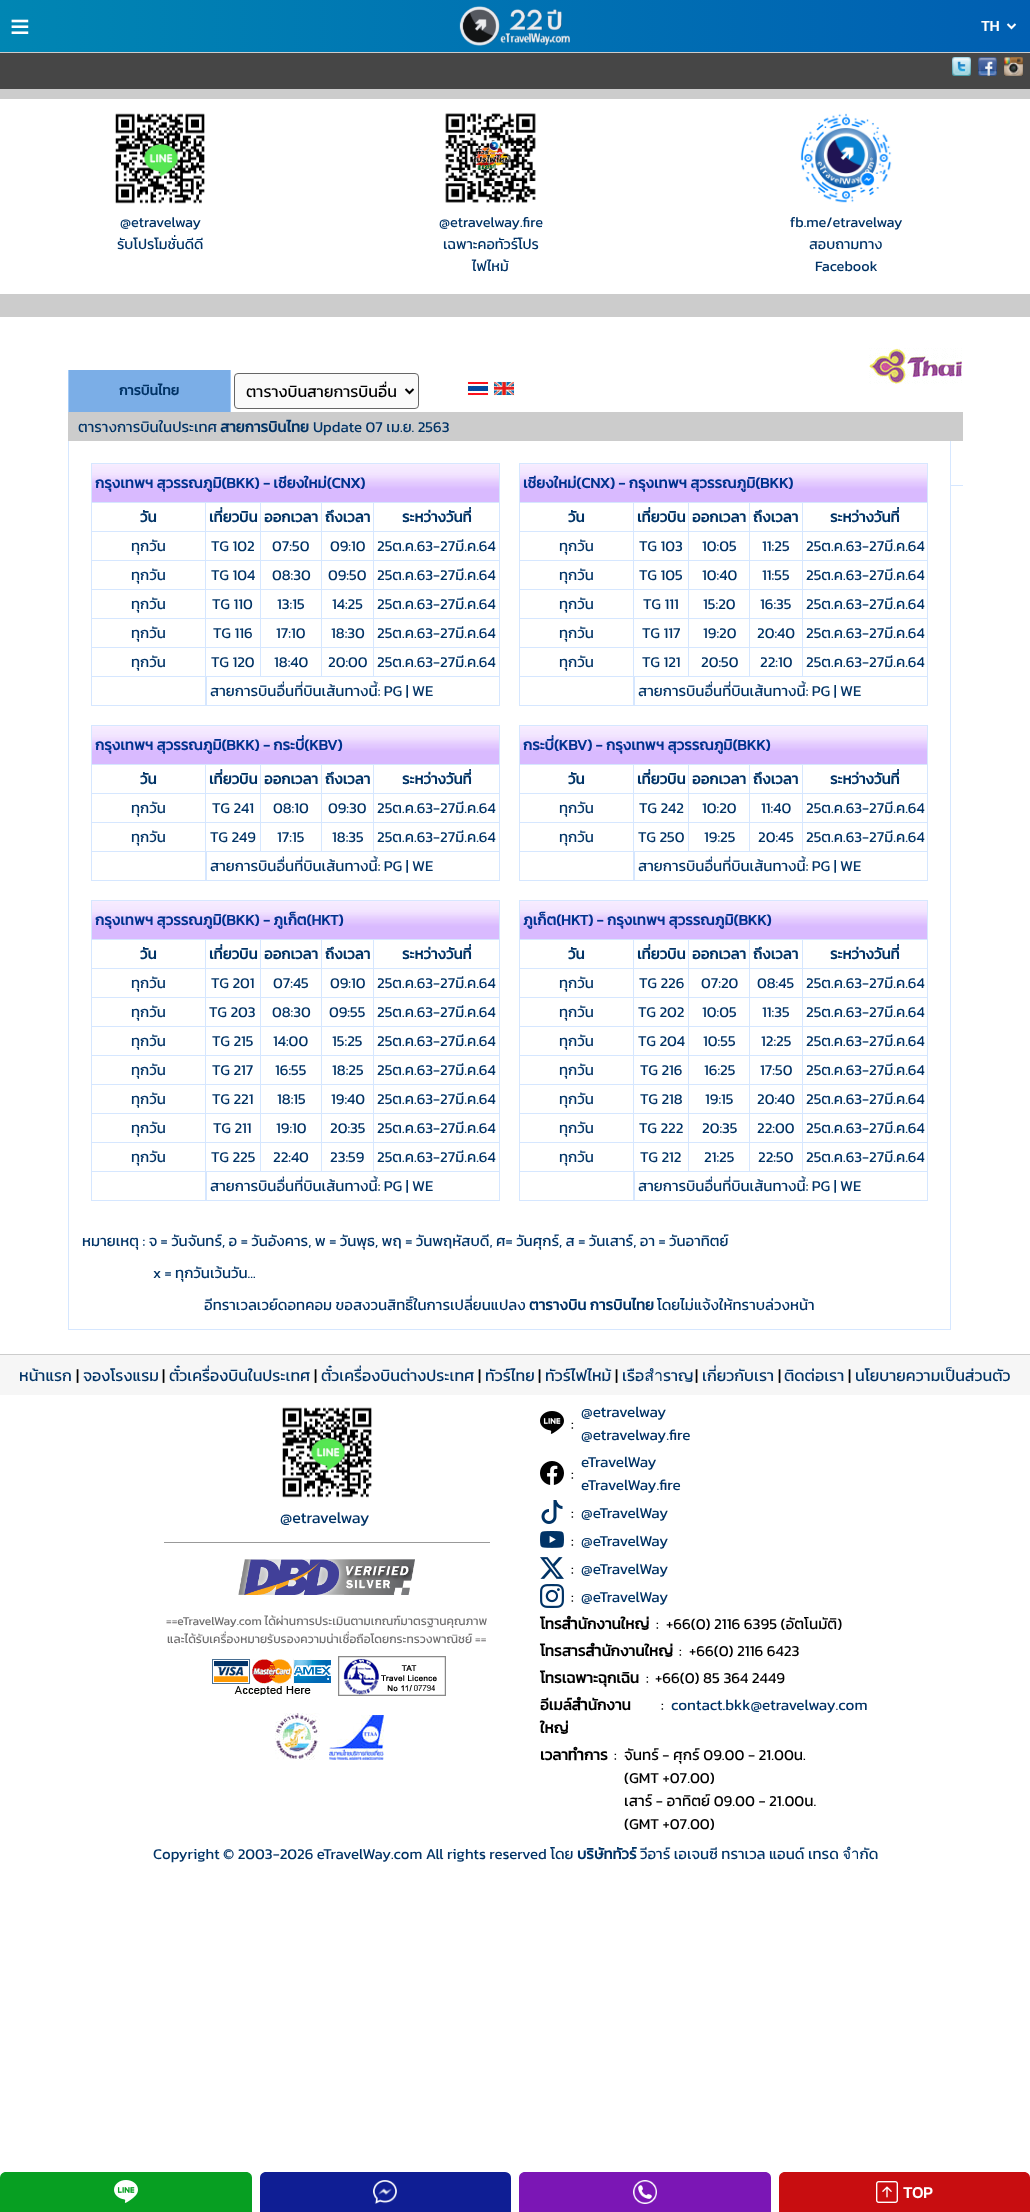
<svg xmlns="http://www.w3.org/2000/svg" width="1030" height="2212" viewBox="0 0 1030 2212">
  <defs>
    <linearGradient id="g1" gradientUnits="userSpaceOnUse" x1="0" y1="26" x2="1030" y2="26"><stop offset="0" stop-color="rgb(0,134,179)"/><stop offset="1" stop-color="rgb(0,95,178)"/></linearGradient>
  </defs>
  <rect width="100%" height="100%" fill="rgb(255,255,255)"/>
  <rect x="0" y="52" width="1030" height="1" fill="rgb(204,204,204)"/>
  <rect x="0" y="0" width="1030" height="52" fill="url(#g1)"/>
  <text x="10" y="38" font-family="Liberation Sans" font-size="34" font-weight="bold" fill="rgb(255,255,255)">≡</text>
  <image x="459" y="6" width="111" height="40" href="pic1.png"/>
  <path d="M1007.5 24L1011.5 28L1015.5 24" fill="none" stroke="rgb(255,255,255)" stroke-width="2"/>
  <text x="981" y="31" font-family="Kanit" font-size="15" font-weight="bold" fill="rgb(255,255,255)">TH</text>
  <rect x="0" y="53" width="1030" height="36" fill="rgb(70,70,70)"/>
  <image x="952" y="57" width="19" height="19" href="pic2.png"/>
  <image x="978" y="57" width="19" height="19" href="pic3.png"/>
  <image x="1004" y="57" width="19" height="19" href="pic4.png"/>
  <rect x="0" y="89" width="1030" height="10" fill="rgb(204,204,204)"/>
  <image x="115" y="113" width="90" height="91" href="pic5.png"/>
  <g font-family="Kanit" font-size="14.5" fill="rgb(0,51,102)">
    <text x="120" y="227">@etravelway</text>
    <text x="117" y="249">รับโปรโมชั่นดีดี</text>
  </g>
  <image x="445" y="113" width="91" height="90" href="pic6.png"/>
  <g font-family="Kanit" font-size="14.5" fill="rgb(0,51,102)">
    <text x="439" y="227">@etravelway.fire</text>
    <text x="443" y="249">เฉพาะคอทัวร์โปร</text>
    <text x="472" y="271">ไฟไหม้</text>
  </g>
  <image x="800" y="113" width="92" height="90" href="pic7.png"/>
  <g font-family="Kanit" font-size="14.5" fill="rgb(0,51,102)">
    <text x="790" y="227">fb.me/etravelway</text>
    <text x="809" y="249">สอบถามทาง</text>
    <text x="815" y="271">Facebook</text>
  </g>
  <rect x="0" y="294" width="1030" height="23" fill="rgb(204,204,204)"/>
  <image x="869" y="348" width="93" height="36" href="pic8.png"/>
  <rect x="69" y="370" width="161" height="42" fill="rgb(123,174,231)"/>
  <rect x="230" y="370" width="1" height="42" fill="rgb(165,203,247)"/>
  <rect x="68" y="370" width="1" height="42" fill="rgb(165,203,247)"/>
  <text x="119" y="395" font-family="Kanit" font-size="14" font-weight="bold" fill="rgb(0,51,102)">การบินไทย</text>
  <rect x="234.5" y="373.5" width="184" height="35" rx="3.5" fill="rgb(250,250,250)" stroke="rgb(102,102,102)"/>
  <path d="M405.5 389L409.5 393L413.5 389" fill="none" stroke="rgb(0,0,0)" stroke-width="2"/>
  <text x="246" y="397" font-family="Kanit" font-size="16" fill="rgb(0,0,0)">ตารางบินสายการบินอื่น</text>
  <image x="467" y="381" width="22" height="15" href="pic9.png"/>
  <image x="493" y="381" width="22" height="15" href="pic10.png"/>
  <rect x="68" y="412" width="895" height="29" fill="rgb(204,204,204)"/>
  <text x="78" y="432" font-family="Kanit" font-size="15" fill="rgb(0,51,102)">ตารางการบินในประเทศ</text>
  <text x="220" y="432" font-family="Kanit" font-size="15" font-weight="bold" fill="rgb(0,51,102)">สายการบินไทย</text>
  <text x="313" y="432" font-family="Kanit" font-size="15" fill="rgb(0,51,102)">Update 07 เม.ย. 2563</text>
  <rect x="950" y="441" width="1" height="889" fill="rgb(214,231,255)"/>
  <rect x="68" y="1329" width="883" height="1" fill="rgb(214,231,255)"/>
  <rect x="68" y="441" width="1" height="889" fill="rgb(214,231,255)"/>
  <image x="92" y="464" width="407" height="38" href="pic11.png"/>
  <rect x="91.5" y="463.5" width="408" height="39" fill="none" stroke="rgb(214,231,255)"/>
  <text x="95" y="488" font-family="Kanit" font-size="15" font-weight="bold" fill="rgb(0,50,143)">กรุงเทพฯ สุวรรณภูมิ(BKK) - เชียงใหม่(CNX)</text>
  <rect x="205" y="503" width="1" height="203" fill="rgb(214,231,255)"/>
  <rect x="91" y="531" width="115" height="1" fill="rgb(214,231,255)"/>
  <rect x="91" y="503" width="1" height="29" fill="rgb(214,231,255)"/>
  <text x="140" y="522" font-family="Kanit" font-size="15" font-weight="bold" fill="rgb(0,51,102)">วัน</text>
  <rect x="260" y="503" width="1" height="174" fill="rgb(214,231,255)"/>
  <rect x="206" y="531" width="55" height="1" fill="rgb(214,231,255)"/>
  <text x="209" y="522" font-family="Kanit" font-size="15" font-weight="bold" fill="rgb(0,51,102)">เที่ยวบิน</text>
  <rect x="321" y="503" width="1" height="174" fill="rgb(214,231,255)"/>
  <rect x="261" y="531" width="61" height="1" fill="rgb(214,231,255)"/>
  <text x="264" y="522" font-family="Kanit" font-size="15" font-weight="bold" fill="rgb(0,51,102)">ออกเวลา</text>
  <rect x="373" y="503" width="1" height="174" fill="rgb(214,231,255)"/>
  <rect x="322" y="531" width="52" height="1" fill="rgb(214,231,255)"/>
  <text x="325" y="522" font-family="Kanit" font-size="15" font-weight="bold" fill="rgb(0,51,102)">ถึงเวลา</text>
  <rect x="499" y="503" width="1" height="203" fill="rgb(214,231,255)"/>
  <rect x="374" y="531" width="126" height="1" fill="rgb(214,231,255)"/>
  <text x="402" y="522" font-family="Kanit" font-size="15" font-weight="bold" fill="rgb(0,51,102)">ระหว่างวันที่</text>
  <rect x="91" y="560" width="409" height="1" fill="rgb(214,231,255)"/>
  <rect x="91" y="532" width="1" height="29" fill="rgb(214,231,255)"/>
  <g font-family="Kanit" font-size="15" fill="rgb(0,51,102)">
    <text x="131" y="551">ทุกวัน</text>
    <text x="211" y="551">TG 102</text>
    <text x="272" y="551">07:50</text>
    <text x="330" y="551">09:10</text>
    <text x="377" y="551">25ต.ค.63-27มี.ค.64</text>
  </g>
  <rect x="91" y="589" width="409" height="1" fill="rgb(214,231,255)"/>
  <rect x="91" y="561" width="1" height="29" fill="rgb(214,231,255)"/>
  <g font-family="Kanit" font-size="15" fill="rgb(0,51,102)">
    <text x="131" y="580">ทุกวัน</text>
    <text x="211" y="580">TG 104</text>
    <text x="272" y="580">08:30</text>
    <text x="328" y="580">09:50</text>
    <text x="377" y="580">25ต.ค.63-27มี.ค.64</text>
  </g>
  <rect x="91" y="618" width="409" height="1" fill="rgb(214,231,255)"/>
  <rect x="91" y="590" width="1" height="29" fill="rgb(214,231,255)"/>
  <g font-family="Kanit" font-size="15" fill="rgb(0,51,102)">
    <text x="131" y="609">ทุกวัน</text>
    <text x="212" y="609">TG 110</text>
    <text x="277" y="609">13:15</text>
    <text x="332" y="609">14:25</text>
    <text x="377" y="609">25ต.ค.63-27มี.ค.64</text>
  </g>
  <rect x="91" y="647" width="409" height="1" fill="rgb(214,231,255)"/>
  <rect x="91" y="619" width="1" height="29" fill="rgb(214,231,255)"/>
  <g font-family="Kanit" font-size="15" fill="rgb(0,51,102)">
    <text x="131" y="638">ทุกวัน</text>
    <text x="213" y="638">TG 116</text>
    <text x="276" y="638">17:10</text>
    <text x="331" y="638">18:30</text>
    <text x="377" y="638">25ต.ค.63-27มี.ค.64</text>
  </g>
  <rect x="91" y="676" width="409" height="1" fill="rgb(214,231,255)"/>
  <rect x="91" y="648" width="1" height="29" fill="rgb(214,231,255)"/>
  <g font-family="Kanit" font-size="15" fill="rgb(0,51,102)">
    <text x="131" y="667">ทุกวัน</text>
    <text x="211" y="667">TG 120</text>
    <text x="274" y="667">18:40</text>
    <text x="328" y="667">20:00</text>
    <text x="377" y="667">25ต.ค.63-27มี.ค.64</text>
  </g>
  <rect x="91" y="705" width="409" height="1" fill="rgb(214,231,255)"/>
  <rect x="91" y="677" width="1" height="29" fill="rgb(214,231,255)"/>
  <rect x="206" y="677" width="1" height="29" fill="rgb(214,231,255)"/>
  <text x="210" y="696" font-family="Kanit" font-size="15" fill="rgb(0,51,102)">สายการบินอื่นที่บินเส้นทางนี้: PG | WE</text>
  <image x="520" y="464" width="407" height="38" href="pic11.png"/>
  <rect x="519.5" y="463.5" width="408" height="39" fill="none" stroke="rgb(214,231,255)"/>
  <text x="523" y="488" font-family="Kanit" font-size="15" font-weight="bold" fill="rgb(0,50,143)">เชียงใหม่(CNX) - กรุงเทพฯ สุวรรณภูมิ(BKK)</text>
  <rect x="633" y="503" width="1" height="203" fill="rgb(214,231,255)"/>
  <rect x="519" y="531" width="115" height="1" fill="rgb(214,231,255)"/>
  <rect x="519" y="503" width="1" height="29" fill="rgb(214,231,255)"/>
  <text x="568" y="522" font-family="Kanit" font-size="15" font-weight="bold" fill="rgb(0,51,102)">วัน</text>
  <rect x="688" y="503" width="1" height="174" fill="rgb(214,231,255)"/>
  <rect x="634" y="531" width="55" height="1" fill="rgb(214,231,255)"/>
  <text x="637" y="522" font-family="Kanit" font-size="15" font-weight="bold" fill="rgb(0,51,102)">เที่ยวบิน</text>
  <rect x="749" y="503" width="1" height="174" fill="rgb(214,231,255)"/>
  <rect x="689" y="531" width="61" height="1" fill="rgb(214,231,255)"/>
  <text x="692" y="522" font-family="Kanit" font-size="15" font-weight="bold" fill="rgb(0,51,102)">ออกเวลา</text>
  <rect x="802" y="503" width="1" height="174" fill="rgb(214,231,255)"/>
  <rect x="750" y="531" width="53" height="1" fill="rgb(214,231,255)"/>
  <text x="753" y="522" font-family="Kanit" font-size="15" font-weight="bold" fill="rgb(0,51,102)">ถึงเวลา</text>
  <rect x="927" y="503" width="1" height="203" fill="rgb(214,231,255)"/>
  <rect x="803" y="531" width="125" height="1" fill="rgb(214,231,255)"/>
  <text x="830" y="522" font-family="Kanit" font-size="15" font-weight="bold" fill="rgb(0,51,102)">ระหว่างวันที่</text>
  <rect x="519" y="560" width="409" height="1" fill="rgb(214,231,255)"/>
  <rect x="519" y="532" width="1" height="29" fill="rgb(214,231,255)"/>
  <g font-family="Kanit" font-size="15" fill="rgb(0,51,102)">
    <text x="559" y="551">ทุกวัน</text>
    <text x="639" y="551">TG 103</text>
    <text x="702" y="551">10:05</text>
    <text x="762" y="551">11:25</text>
    <text x="806" y="551">25ต.ค.63-27มี.ค.64</text>
  </g>
  <rect x="519" y="589" width="409" height="1" fill="rgb(214,231,255)"/>
  <rect x="519" y="561" width="1" height="29" fill="rgb(214,231,255)"/>
  <g font-family="Kanit" font-size="15" fill="rgb(0,51,102)">
    <text x="559" y="580">ทุกวัน</text>
    <text x="639" y="580">TG 105</text>
    <text x="702" y="580">10:40</text>
    <text x="762" y="580">11:55</text>
    <text x="806" y="580">25ต.ค.63-27มี.ค.64</text>
  </g>
  <rect x="519" y="618" width="409" height="1" fill="rgb(214,231,255)"/>
  <rect x="519" y="590" width="1" height="29" fill="rgb(214,231,255)"/>
  <g font-family="Kanit" font-size="15" fill="rgb(0,51,102)">
    <text x="559" y="609">ทุกวัน</text>
    <text x="643" y="609">TG 111</text>
    <text x="703" y="609">15:20</text>
    <text x="760" y="609">16:35</text>
    <text x="806" y="609">25ต.ค.63-27มี.ค.64</text>
  </g>
  <rect x="519" y="647" width="409" height="1" fill="rgb(214,231,255)"/>
  <rect x="519" y="619" width="1" height="29" fill="rgb(214,231,255)"/>
  <g font-family="Kanit" font-size="15" fill="rgb(0,51,102)">
    <text x="559" y="638">ทุกวัน</text>
    <text x="642" y="638">TG 117</text>
    <text x="703" y="638">19:20</text>
    <text x="757" y="638">20:40</text>
    <text x="806" y="638">25ต.ค.63-27มี.ค.64</text>
  </g>
  <rect x="519" y="676" width="409" height="1" fill="rgb(214,231,255)"/>
  <rect x="519" y="648" width="1" height="29" fill="rgb(214,231,255)"/>
  <g font-family="Kanit" font-size="15" fill="rgb(0,51,102)">
    <text x="559" y="667">ทุกวัน</text>
    <text x="642" y="667">TG 121</text>
    <text x="701" y="667">20:50</text>
    <text x="760" y="667">22:10</text>
    <text x="806" y="667">25ต.ค.63-27มี.ค.64</text>
  </g>
  <rect x="519" y="705" width="409" height="1" fill="rgb(214,231,255)"/>
  <rect x="519" y="677" width="1" height="29" fill="rgb(214,231,255)"/>
  <rect x="634" y="677" width="1" height="29" fill="rgb(214,231,255)"/>
  <text x="638" y="696" font-family="Kanit" font-size="15" fill="rgb(0,51,102)">สายการบินอื่นที่บินเส้นทางนี้: PG | WE</text>
  <image x="92" y="726" width="407" height="38" href="pic11.png"/>
  <rect x="91.5" y="725.5" width="408" height="39" fill="none" stroke="rgb(214,231,255)"/>
  <text x="95" y="750" font-family="Kanit" font-size="15" font-weight="bold" fill="rgb(0,50,143)">กรุงเทพฯ สุวรรณภูมิ(BKK) - กระบี่(KBV)</text>
  <rect x="205" y="765" width="1" height="116" fill="rgb(214,231,255)"/>
  <rect x="91" y="793" width="115" height="1" fill="rgb(214,231,255)"/>
  <rect x="91" y="765" width="1" height="29" fill="rgb(214,231,255)"/>
  <text x="140" y="784" font-family="Kanit" font-size="15" font-weight="bold" fill="rgb(0,51,102)">วัน</text>
  <rect x="260" y="765" width="1" height="87" fill="rgb(214,231,255)"/>
  <rect x="206" y="793" width="55" height="1" fill="rgb(214,231,255)"/>
  <text x="209" y="784" font-family="Kanit" font-size="15" font-weight="bold" fill="rgb(0,51,102)">เที่ยวบิน</text>
  <rect x="321" y="765" width="1" height="87" fill="rgb(214,231,255)"/>
  <rect x="261" y="793" width="61" height="1" fill="rgb(214,231,255)"/>
  <text x="264" y="784" font-family="Kanit" font-size="15" font-weight="bold" fill="rgb(0,51,102)">ออกเวลา</text>
  <rect x="373" y="765" width="1" height="87" fill="rgb(214,231,255)"/>
  <rect x="322" y="793" width="52" height="1" fill="rgb(214,231,255)"/>
  <text x="325" y="784" font-family="Kanit" font-size="15" font-weight="bold" fill="rgb(0,51,102)">ถึงเวลา</text>
  <rect x="499" y="765" width="1" height="116" fill="rgb(214,231,255)"/>
  <rect x="374" y="793" width="126" height="1" fill="rgb(214,231,255)"/>
  <text x="402" y="784" font-family="Kanit" font-size="15" font-weight="bold" fill="rgb(0,51,102)">ระหว่างวันที่</text>
  <rect x="91" y="822" width="409" height="1" fill="rgb(214,231,255)"/>
  <rect x="91" y="794" width="1" height="29" fill="rgb(214,231,255)"/>
  <g font-family="Kanit" font-size="15" fill="rgb(0,51,102)">
    <text x="131" y="813">ทุกวัน</text>
    <text x="212" y="813">TG 241</text>
    <text x="273" y="813">08:10</text>
    <text x="328" y="813">09:30</text>
    <text x="377" y="813">25ต.ค.63-27มี.ค.64</text>
  </g>
  <rect x="91" y="851" width="409" height="1" fill="rgb(214,231,255)"/>
  <rect x="91" y="823" width="1" height="29" fill="rgb(214,231,255)"/>
  <g font-family="Kanit" font-size="15" fill="rgb(0,51,102)">
    <text x="131" y="842">ทุกวัน</text>
    <text x="210" y="842">TG 249</text>
    <text x="277" y="842">17:15</text>
    <text x="332" y="842">18:35</text>
    <text x="377" y="842">25ต.ค.63-27มี.ค.64</text>
  </g>
  <rect x="91" y="880" width="409" height="1" fill="rgb(214,231,255)"/>
  <rect x="91" y="852" width="1" height="29" fill="rgb(214,231,255)"/>
  <rect x="206" y="852" width="1" height="29" fill="rgb(214,231,255)"/>
  <text x="210" y="871" font-family="Kanit" font-size="15" fill="rgb(0,51,102)">สายการบินอื่นที่บินเส้นทางนี้: PG | WE</text>
  <image x="520" y="726" width="407" height="38" href="pic11.png"/>
  <rect x="519.5" y="725.5" width="408" height="39" fill="none" stroke="rgb(214,231,255)"/>
  <text x="523" y="750" font-family="Kanit" font-size="15" font-weight="bold" fill="rgb(0,50,143)">กระบี่(KBV) - กรุงเทพฯ สุวรรณภูมิ(BKK)</text>
  <rect x="633" y="765" width="1" height="116" fill="rgb(214,231,255)"/>
  <rect x="519" y="793" width="115" height="1" fill="rgb(214,231,255)"/>
  <rect x="519" y="765" width="1" height="29" fill="rgb(214,231,255)"/>
  <text x="568" y="784" font-family="Kanit" font-size="15" font-weight="bold" fill="rgb(0,51,102)">วัน</text>
  <rect x="688" y="765" width="1" height="87" fill="rgb(214,231,255)"/>
  <rect x="634" y="793" width="55" height="1" fill="rgb(214,231,255)"/>
  <text x="637" y="784" font-family="Kanit" font-size="15" font-weight="bold" fill="rgb(0,51,102)">เที่ยวบิน</text>
  <rect x="749" y="765" width="1" height="87" fill="rgb(214,231,255)"/>
  <rect x="689" y="793" width="61" height="1" fill="rgb(214,231,255)"/>
  <text x="692" y="784" font-family="Kanit" font-size="15" font-weight="bold" fill="rgb(0,51,102)">ออกเวลา</text>
  <rect x="802" y="765" width="1" height="87" fill="rgb(214,231,255)"/>
  <rect x="750" y="793" width="53" height="1" fill="rgb(214,231,255)"/>
  <text x="753" y="784" font-family="Kanit" font-size="15" font-weight="bold" fill="rgb(0,51,102)">ถึงเวลา</text>
  <rect x="927" y="765" width="1" height="116" fill="rgb(214,231,255)"/>
  <rect x="803" y="793" width="125" height="1" fill="rgb(214,231,255)"/>
  <text x="830" y="784" font-family="Kanit" font-size="15" font-weight="bold" fill="rgb(0,51,102)">ระหว่างวันที่</text>
  <rect x="519" y="822" width="409" height="1" fill="rgb(214,231,255)"/>
  <rect x="519" y="794" width="1" height="29" fill="rgb(214,231,255)"/>
  <g font-family="Kanit" font-size="15" fill="rgb(0,51,102)">
    <text x="559" y="813">ทุกวัน</text>
    <text x="639" y="813">TG 242</text>
    <text x="702" y="813">10:20</text>
    <text x="761" y="813">11:40</text>
    <text x="806" y="813">25ต.ค.63-27มี.ค.64</text>
  </g>
  <rect x="519" y="851" width="409" height="1" fill="rgb(214,231,255)"/>
  <rect x="519" y="823" width="1" height="29" fill="rgb(214,231,255)"/>
  <g font-family="Kanit" font-size="15" fill="rgb(0,51,102)">
    <text x="559" y="842">ทุกวัน</text>
    <text x="638" y="842">TG 250</text>
    <text x="704" y="842">19:25</text>
    <text x="758" y="842">20:45</text>
    <text x="806" y="842">25ต.ค.63-27มี.ค.64</text>
  </g>
  <rect x="519" y="880" width="409" height="1" fill="rgb(214,231,255)"/>
  <rect x="519" y="852" width="1" height="29" fill="rgb(214,231,255)"/>
  <rect x="634" y="852" width="1" height="29" fill="rgb(214,231,255)"/>
  <text x="638" y="871" font-family="Kanit" font-size="15" fill="rgb(0,51,102)">สายการบินอื่นที่บินเส้นทางนี้: PG | WE</text>
  <image x="92" y="901" width="407" height="38" href="pic11.png"/>
  <rect x="91.5" y="900.5" width="408" height="39" fill="none" stroke="rgb(214,231,255)"/>
  <text x="95" y="925" font-family="Kanit" font-size="15" font-weight="bold" fill="rgb(0,50,143)">กรุงเทพฯ สุวรรณภูมิ(BKK) - ภูเก็ต(HKT)</text>
  <rect x="205" y="940" width="1" height="261" fill="rgb(214,231,255)"/>
  <rect x="91" y="968" width="115" height="1" fill="rgb(214,231,255)"/>
  <rect x="91" y="940" width="1" height="29" fill="rgb(214,231,255)"/>
  <text x="140" y="959" font-family="Kanit" font-size="15" font-weight="bold" fill="rgb(0,51,102)">วัน</text>
  <rect x="260" y="940" width="1" height="232" fill="rgb(214,231,255)"/>
  <rect x="206" y="968" width="55" height="1" fill="rgb(214,231,255)"/>
  <text x="209" y="959" font-family="Kanit" font-size="15" font-weight="bold" fill="rgb(0,51,102)">เที่ยวบิน</text>
  <rect x="321" y="940" width="1" height="232" fill="rgb(214,231,255)"/>
  <rect x="261" y="968" width="61" height="1" fill="rgb(214,231,255)"/>
  <text x="264" y="959" font-family="Kanit" font-size="15" font-weight="bold" fill="rgb(0,51,102)">ออกเวลา</text>
  <rect x="373" y="940" width="1" height="232" fill="rgb(214,231,255)"/>
  <rect x="322" y="968" width="52" height="1" fill="rgb(214,231,255)"/>
  <text x="325" y="959" font-family="Kanit" font-size="15" font-weight="bold" fill="rgb(0,51,102)">ถึงเวลา</text>
  <rect x="499" y="940" width="1" height="261" fill="rgb(214,231,255)"/>
  <rect x="374" y="968" width="126" height="1" fill="rgb(214,231,255)"/>
  <text x="402" y="959" font-family="Kanit" font-size="15" font-weight="bold" fill="rgb(0,51,102)">ระหว่างวันที่</text>
  <rect x="91" y="997" width="409" height="1" fill="rgb(214,231,255)"/>
  <rect x="91" y="969" width="1" height="29" fill="rgb(214,231,255)"/>
  <g font-family="Kanit" font-size="15" fill="rgb(0,51,102)">
    <text x="131" y="988">ทุกวัน</text>
    <text x="211" y="988">TG 201</text>
    <text x="273" y="988">07:45</text>
    <text x="330" y="988">09:10</text>
    <text x="377" y="988">25ต.ค.63-27มี.ค.64</text>
  </g>
  <rect x="91" y="1026" width="409" height="1" fill="rgb(214,231,255)"/>
  <rect x="91" y="998" width="1" height="29" fill="rgb(214,231,255)"/>
  <g font-family="Kanit" font-size="15" fill="rgb(0,51,102)">
    <text x="131" y="1017">ทุกวัน</text>
    <text x="209" y="1017">TG 203</text>
    <text x="272" y="1017">08:30</text>
    <text x="329" y="1017">09:55</text>
    <text x="377" y="1017">25ต.ค.63-27มี.ค.64</text>
  </g>
  <rect x="91" y="1055" width="409" height="1" fill="rgb(214,231,255)"/>
  <rect x="91" y="1027" width="1" height="29" fill="rgb(214,231,255)"/>
  <g font-family="Kanit" font-size="15" fill="rgb(0,51,102)">
    <text x="131" y="1046">ทุกวัน</text>
    <text x="212" y="1046">TG 215</text>
    <text x="273" y="1046">14:00</text>
    <text x="332" y="1046">15:25</text>
    <text x="377" y="1046">25ต.ค.63-27มี.ค.64</text>
  </g>
  <rect x="91" y="1084" width="409" height="1" fill="rgb(214,231,255)"/>
  <rect x="91" y="1056" width="1" height="29" fill="rgb(214,231,255)"/>
  <g font-family="Kanit" font-size="15" fill="rgb(0,51,102)">
    <text x="131" y="1075">ทุกวัน</text>
    <text x="212" y="1075">TG 217</text>
    <text x="275" y="1075">16:55</text>
    <text x="332" y="1075">18:25</text>
    <text x="377" y="1075">25ต.ค.63-27มี.ค.64</text>
  </g>
  <rect x="91" y="1113" width="409" height="1" fill="rgb(214,231,255)"/>
  <rect x="91" y="1085" width="1" height="29" fill="rgb(214,231,255)"/>
  <g font-family="Kanit" font-size="15" fill="rgb(0,51,102)">
    <text x="131" y="1104">ทุกวัน</text>
    <text x="212" y="1104">TG 221</text>
    <text x="277" y="1104">18:15</text>
    <text x="331" y="1104">19:40</text>
    <text x="377" y="1104">25ต.ค.63-27มี.ค.64</text>
  </g>
  <rect x="91" y="1142" width="409" height="1" fill="rgb(214,231,255)"/>
  <rect x="91" y="1114" width="1" height="29" fill="rgb(214,231,255)"/>
  <g font-family="Kanit" font-size="15" fill="rgb(0,51,102)">
    <text x="131" y="1133">ทุกวัน</text>
    <text x="213" y="1133">TG 211</text>
    <text x="276" y="1133">19:10</text>
    <text x="330" y="1133">20:35</text>
    <text x="377" y="1133">25ต.ค.63-27มี.ค.64</text>
  </g>
  <rect x="91" y="1171" width="409" height="1" fill="rgb(214,231,255)"/>
  <rect x="91" y="1143" width="1" height="29" fill="rgb(214,231,255)"/>
  <g font-family="Kanit" font-size="15" fill="rgb(0,51,102)">
    <text x="131" y="1162">ทุกวัน</text>
    <text x="211" y="1162">TG 225</text>
    <text x="273" y="1162">22:40</text>
    <text x="330" y="1162">23:59</text>
    <text x="377" y="1162">25ต.ค.63-27มี.ค.64</text>
  </g>
  <rect x="91" y="1200" width="409" height="1" fill="rgb(214,231,255)"/>
  <rect x="91" y="1172" width="1" height="29" fill="rgb(214,231,255)"/>
  <rect x="206" y="1172" width="1" height="29" fill="rgb(214,231,255)"/>
  <text x="210" y="1191" font-family="Kanit" font-size="15" fill="rgb(0,51,102)">สายการบินอื่นที่บินเส้นทางนี้: PG | WE</text>
  <image x="520" y="901" width="407" height="38" href="pic11.png"/>
  <rect x="519.5" y="900.5" width="408" height="39" fill="none" stroke="rgb(214,231,255)"/>
  <text x="523" y="925" font-family="Kanit" font-size="15" font-weight="bold" fill="rgb(0,50,143)">ภูเก็ต(HKT) - กรุงเทพฯ สุวรรณภูมิ(BKK)</text>
  <rect x="633" y="940" width="1" height="261" fill="rgb(214,231,255)"/>
  <rect x="519" y="968" width="115" height="1" fill="rgb(214,231,255)"/>
  <rect x="519" y="940" width="1" height="29" fill="rgb(214,231,255)"/>
  <text x="568" y="959" font-family="Kanit" font-size="15" font-weight="bold" fill="rgb(0,51,102)">วัน</text>
  <rect x="688" y="940" width="1" height="232" fill="rgb(214,231,255)"/>
  <rect x="634" y="968" width="55" height="1" fill="rgb(214,231,255)"/>
  <text x="637" y="959" font-family="Kanit" font-size="15" font-weight="bold" fill="rgb(0,51,102)">เที่ยวบิน</text>
  <rect x="749" y="940" width="1" height="232" fill="rgb(214,231,255)"/>
  <rect x="689" y="968" width="61" height="1" fill="rgb(214,231,255)"/>
  <text x="692" y="959" font-family="Kanit" font-size="15" font-weight="bold" fill="rgb(0,51,102)">ออกเวลา</text>
  <rect x="802" y="940" width="1" height="232" fill="rgb(214,231,255)"/>
  <rect x="750" y="968" width="53" height="1" fill="rgb(214,231,255)"/>
  <text x="753" y="959" font-family="Kanit" font-size="15" font-weight="bold" fill="rgb(0,51,102)">ถึงเวลา</text>
  <rect x="927" y="940" width="1" height="261" fill="rgb(214,231,255)"/>
  <rect x="803" y="968" width="125" height="1" fill="rgb(214,231,255)"/>
  <text x="830" y="959" font-family="Kanit" font-size="15" font-weight="bold" fill="rgb(0,51,102)">ระหว่างวันที่</text>
  <rect x="519" y="997" width="409" height="1" fill="rgb(214,231,255)"/>
  <rect x="519" y="969" width="1" height="29" fill="rgb(214,231,255)"/>
  <g font-family="Kanit" font-size="15" fill="rgb(0,51,102)">
    <text x="559" y="988">ทุกวัน</text>
    <text x="639" y="988">TG 226</text>
    <text x="701" y="988">07:20</text>
    <text x="757" y="988">08:45</text>
    <text x="806" y="988">25ต.ค.63-27มี.ค.64</text>
  </g>
  <rect x="519" y="1026" width="409" height="1" fill="rgb(214,231,255)"/>
  <rect x="519" y="998" width="1" height="29" fill="rgb(214,231,255)"/>
  <g font-family="Kanit" font-size="15" fill="rgb(0,51,102)">
    <text x="559" y="1017">ทุกวัน</text>
    <text x="638" y="1017">TG 202</text>
    <text x="702" y="1017">10:05</text>
    <text x="762" y="1017">11:35</text>
    <text x="806" y="1017">25ต.ค.63-27มี.ค.64</text>
  </g>
  <rect x="519" y="1055" width="409" height="1" fill="rgb(214,231,255)"/>
  <rect x="519" y="1027" width="1" height="29" fill="rgb(214,231,255)"/>
  <g font-family="Kanit" font-size="15" fill="rgb(0,51,102)">
    <text x="559" y="1046">ทุกวัน</text>
    <text x="638" y="1046">TG 204</text>
    <text x="703" y="1046">10:55</text>
    <text x="761" y="1046">12:25</text>
    <text x="806" y="1046">25ต.ค.63-27มี.ค.64</text>
  </g>
  <rect x="519" y="1084" width="409" height="1" fill="rgb(214,231,255)"/>
  <rect x="519" y="1056" width="1" height="29" fill="rgb(214,231,255)"/>
  <g font-family="Kanit" font-size="15" fill="rgb(0,51,102)">
    <text x="559" y="1075">ทุกวัน</text>
    <text x="640" y="1075">TG 216</text>
    <text x="704" y="1075">16:25</text>
    <text x="760" y="1075">17:50</text>
    <text x="806" y="1075">25ต.ค.63-27มี.ค.64</text>
  </g>
  <rect x="519" y="1113" width="409" height="1" fill="rgb(214,231,255)"/>
  <rect x="519" y="1085" width="1" height="29" fill="rgb(214,231,255)"/>
  <g font-family="Kanit" font-size="15" fill="rgb(0,51,102)">
    <text x="559" y="1104">ทุกวัน</text>
    <text x="640" y="1104">TG 218</text>
    <text x="705" y="1104">19:15</text>
    <text x="757" y="1104">20:40</text>
    <text x="806" y="1104">25ต.ค.63-27มี.ค.64</text>
  </g>
  <rect x="519" y="1142" width="409" height="1" fill="rgb(214,231,255)"/>
  <rect x="519" y="1114" width="1" height="29" fill="rgb(214,231,255)"/>
  <g font-family="Kanit" font-size="15" fill="rgb(0,51,102)">
    <text x="559" y="1133">ทุกวัน</text>
    <text x="639" y="1133">TG 222</text>
    <text x="702" y="1133">20:35</text>
    <text x="757" y="1133">22:00</text>
    <text x="806" y="1133">25ต.ค.63-27มี.ค.64</text>
  </g>
  <rect x="519" y="1171" width="409" height="1" fill="rgb(214,231,255)"/>
  <rect x="519" y="1143" width="1" height="29" fill="rgb(214,231,255)"/>
  <g font-family="Kanit" font-size="15" fill="rgb(0,51,102)">
    <text x="559" y="1162">ทุกวัน</text>
    <text x="640" y="1162">TG 212</text>
    <text x="704" y="1162">21:25</text>
    <text x="758" y="1162">22:50</text>
    <text x="806" y="1162">25ต.ค.63-27มี.ค.64</text>
  </g>
  <rect x="519" y="1200" width="409" height="1" fill="rgb(214,231,255)"/>
  <rect x="519" y="1172" width="1" height="29" fill="rgb(214,231,255)"/>
  <rect x="634" y="1172" width="1" height="29" fill="rgb(214,231,255)"/>
  <g font-family="Kanit" font-size="15" fill="rgb(0,51,102)">
    <text x="638" y="1191">สายการบินอื่นที่บินเส้นทางนี้: PG | WE</text>
    <text x="82" y="1246">หมายเหตุ : จ = วันจันทร์, อ = วันอังคาร, พ = วันพุธ, พฤ = วันพฤหัสบดี, ศ= วันศุกร์, ส = วันเสาร์, อา = วันอาทิตย์</text>
    <text x="153" y="1278">x = ทุกวันเว้นวัน...</text>
    <text x="204" y="1310">อีทราเวลเวย์ดอทคอม ขอสงวนสิทธิ์ในการเปลี่ยนแปลง</text>
  </g>
  <text x="529" y="1310" font-family="Kanit" font-size="15" font-weight="bold" fill="rgb(0,51,102)">ตารางบิน การบินไทย</text>
  <text x="657" y="1310" font-family="Kanit" font-size="15" fill="rgb(0,51,102)">โดยไม่แจ้งให้ทราบล่วงหน้า</text>
  <rect x="951" y="485" width="12" height="1" fill="rgb(214,231,255)"/>
  <rect x="0" y="1355" width="1030" height="40" fill="rgb(246,246,246)"/>
  <rect x="0" y="1354" width="1030" height="1" fill="rgb(204,204,204)"/>
  <text x="19" y="1381" font-family="Kanit" font-size="16" fill="rgb(0,51,102)">หน้าแรก</text>
  <text x="76" y="1381" font-family="Kanit" font-size="16" fill="rgb(0,0,0)">|</text>
  <text x="83" y="1381" font-family="Kanit" font-size="16" fill="rgb(0,51,102)">จองโรงแรม</text>
  <text x="162" y="1381" font-family="Kanit" font-size="16" fill="rgb(0,0,0)">|</text>
  <text x="169" y="1381" font-family="Kanit" font-size="16" fill="rgb(0,51,102)">ตั๋วเครื่องบินในประเทศ</text>
  <text x="314" y="1381" font-family="Kanit" font-size="16" fill="rgb(0,0,0)">|</text>
  <text x="321" y="1381" font-family="Kanit" font-size="16" fill="rgb(0,51,102)">ตั๋วเครื่องบินต่างประเทศ</text>
  <text x="478" y="1381" font-family="Kanit" font-size="16" fill="rgb(0,0,0)">|</text>
  <text x="485" y="1381" font-family="Kanit" font-size="16" fill="rgb(0,51,102)">ทัวร์ไทย</text>
  <text x="538" y="1381" font-family="Kanit" font-size="16" fill="rgb(0,0,0)">|</text>
  <g font-family="Kanit" font-size="16" fill="rgb(0,51,102)">
    <text x="545" y="1381">ทัวร์ไฟไหม้</text>
    <text x="622" y="1381">เรือสำราญ</text>
    <text x="702" y="1381">เกี่ยวกับเรา</text>
  </g>
  <text x="778" y="1381" font-family="Kanit" font-size="16" fill="rgb(0,0,0)">|</text>
  <g font-family="Kanit" font-size="16" fill="rgb(0,51,102)">
    <text x="784" y="1381">ติดต่อเรา</text>
    <text x="855" y="1381">นโยบายความเป็นส่วนตัว</text>
  </g>
  <g font-family="Kanit" font-size="16" fill="rgb(0,0,0)">
    <text x="615" y="1381">|</text>
    <text x="695" y="1381">|</text>
    <text x="848" y="1381">|</text>
  </g>
  <image x="282" y="1407" width="90" height="91" href="pic5.png"/>
  <text x="280" y="1523" font-family="Kanit" font-size="16" fill="rgb(0,51,102)">@etravelway</text>
  <rect x="164" y="1542" width="326" height="1" fill="rgb(153,153,153)"/>
  <image x="238" y="1559" width="177" height="36" href="pic12.png"/>
  <g font-family="Kanit" font-size="12" fill="rgb(112,111,112)">
    <text x="166" y="1625">==eTravelWay.com ได้ผ่านการประเมินตามเกณฑ์มาตรฐานคุณภาพ</text>
    <text x="167" y="1643">และได้รับเครื่องหมายรับรองความน่าเชื่อถือโดยกระทรวงพาณิชย์ ==</text>
  </g>
  <image x="212" y="1656" width="234" height="40" href="pic13.png"/>
  <image x="275" y="1713" width="45" height="47" href="pic14.png"/>
  <image x="329" y="1715" width="55" height="45" href="pic15.png"/>
  <image x="540" y="1411" width="24" height="23" href="pic16.png"/>
  <text x="571" y="1429" font-family="Kanit" font-size="15.25" fill="rgb(0,0,0)">:</text>
  <g font-family="Kanit" font-size="15.25" fill="rgb(0,51,102)">
    <text>
      <tspan x="581" y="1417">@etravelway</tspan>
      <tspan x="581" y="1440">@etravelway.fire</tspan>
    </text>
  </g>
  <image x="540" y="1461" width="24" height="24" href="pic17.png"/>
  <text x="571" y="1479" font-family="Kanit" font-size="15.25" fill="rgb(0,0,0)">:</text>
  <g font-family="Kanit" font-size="15.25" fill="rgb(0,51,102)">
    <text>
      <tspan x="581" y="1467">eTravelWay</tspan>
      <tspan x="581" y="1490">eTravelWay.fire</tspan>
    </text>
  </g>
  <image x="541" y="1500" width="22" height="24" href="pic18.png"/>
  <text x="571" y="1518" font-family="Kanit" font-size="15.25" fill="rgb(0,0,0)">:</text>
  <text x="581" y="1518" font-family="Kanit" font-size="15.25" fill="rgb(0,51,102)">@eTravelWay</text>
  <image x="540" y="1531" width="24" height="17" href="pic19.png"/>
  <text x="571" y="1546" font-family="Kanit" font-size="15.25" fill="rgb(0,0,0)">:</text>
  <text x="581" y="1546" font-family="Kanit" font-size="15.25" fill="rgb(0,51,102)">@eTravelWay</text>
  <image x="540" y="1557" width="24" height="22" href="pic20.png"/>
  <text x="571" y="1574" font-family="Kanit" font-size="15.25" fill="rgb(0,0,0)">:</text>
  <text x="581" y="1574" font-family="Kanit" font-size="15.25" fill="rgb(0,51,102)">@eTravelWay</text>
  <image x="540" y="1584" width="24" height="24" href="pic21.png"/>
  <text x="571" y="1602" font-family="Kanit" font-size="15.25" fill="rgb(0,0,0)">:</text>
  <text x="581" y="1602" font-family="Kanit" font-size="15.25" fill="rgb(0,51,102)">@eTravelWay</text>
  <text x="540" y="1629" font-family="Kanit" font-size="15.25" font-weight="bold" fill="rgb(0,0,0)">โทรสำนักงานใหญ่</text>
  <g font-family="Kanit" font-size="15.25" fill="rgb(0,0,0)">
    <text x="656" y="1629">:</text>
    <text x="666" y="1629">+66(0) 2116 6395 (อัตโนมัติ)</text>
  </g>
  <text x="540" y="1656" font-family="Kanit" font-size="15.25" font-weight="bold" fill="rgb(0,0,0)">โทรสารสำนักงานใหญ่</text>
  <g font-family="Kanit" font-size="15.25" fill="rgb(0,0,0)">
    <text x="679" y="1656">:</text>
    <text x="689" y="1656">+66(0) 2116 6423</text>
  </g>
  <text x="540" y="1683" font-family="Kanit" font-size="15.25" font-weight="bold" fill="rgb(0,0,0)">โทรเฉพาะฉุกเฉิน</text>
  <g font-family="Kanit" font-size="15.25" fill="rgb(0,0,0)">
    <text x="646" y="1683">:</text>
    <text x="655" y="1683">+66(0) 85 364 2449</text>
  </g>
  <g font-family="Kanit" font-size="15.25" font-weight="bold" fill="rgb(0,0,0)">
    <text>
      <tspan x="540" y="1710">อีเมล์สำนักงาน</tspan>
      <tspan x="540" y="1733">ใหญ่</tspan>
    </text>
  </g>
  <text x="661" y="1710" font-family="Kanit" font-size="15.25" fill="rgb(0,0,0)">:</text>
  <text x="671" y="1710" font-family="Kanit" font-size="15.25" fill="rgb(0,51,102)">contact.bkk@etravelway.com</text>
  <text x="540" y="1760" font-family="Kanit" font-size="15.25" font-weight="bold" fill="rgb(0,0,0)">เวลาทำการ</text>
  <g font-family="Kanit" font-size="15.25" fill="rgb(0,0,0)">
    <text x="614" y="1760">:</text>
    <text>
      <tspan x="624" y="1760">จันทร์ - ศุกร์ 09.00 - 21.00น.</tspan>
      <tspan x="624" y="1783">(GMT +07.00)</tspan>
      <tspan x="624" y="1806">เสาร์ - อาทิตย์ 09.00 - 21.00น.</tspan>
      <tspan x="624" y="1829">(GMT +07.00)</tspan>
    </text>
  </g>
  <text x="153" y="1859" font-family="Kanit" font-size="15" fill="rgb(0,51,102)">Copyright © 2003-2026 eTravelWay.com All rights reserved โดย</text>
  <text x="577" y="1859" font-family="Kanit" font-size="15" font-weight="bold" fill="rgb(0,51,102)">บริษัททัวร์</text>
  <text x="640" y="1859" font-family="Kanit" font-size="15" fill="rgb(0,51,102)">วีอาร์ เอเจนซี ทราเวล แอนด์ เทรด จำกัด</text>
  <path d="M6 2172H246C249.5 2172 252 2174.5 252 2178V2212H0V2178C0 2174.5 2.5 2172 6 2172Z" fill="rgb(7,159,34)"/>
  <image x="114" y="2180" width="24" height="23" href="pic22.png"/>
  <path d="M266 2172H505C508.5 2172 511 2174.5 511 2178V2212H260V2178C260 2174.5 262.5 2172 266 2172Z" fill="rgb(15,30,148)"/>
  <image x="373" y="2180" width="24" height="24" href="pic23.png"/>
  <path d="M525 2172H765C768.5 2172 771 2174.5 771 2178V2212H519V2178C519 2174.5 521.5 2172 525 2172Z" fill="rgb(123,22,181)"/>
  <image x="633" y="2180" width="24" height="24" href="pic24.png"/>
  <path d="M785 2172H1024C1027.5 2172 1030 2174.5 1030 2178V2212H779V2178C779 2174.5 781.5 2172 785 2172Z" fill="rgb(200,13,16)"/>
  <image x="876" y="2181" width="22" height="22" href="pic25.png"/>
  <text x="903" y="2198" font-family="Kanit" font-size="16" font-weight="bold" fill="rgb(255,255,255)">TOP</text>
</svg>
